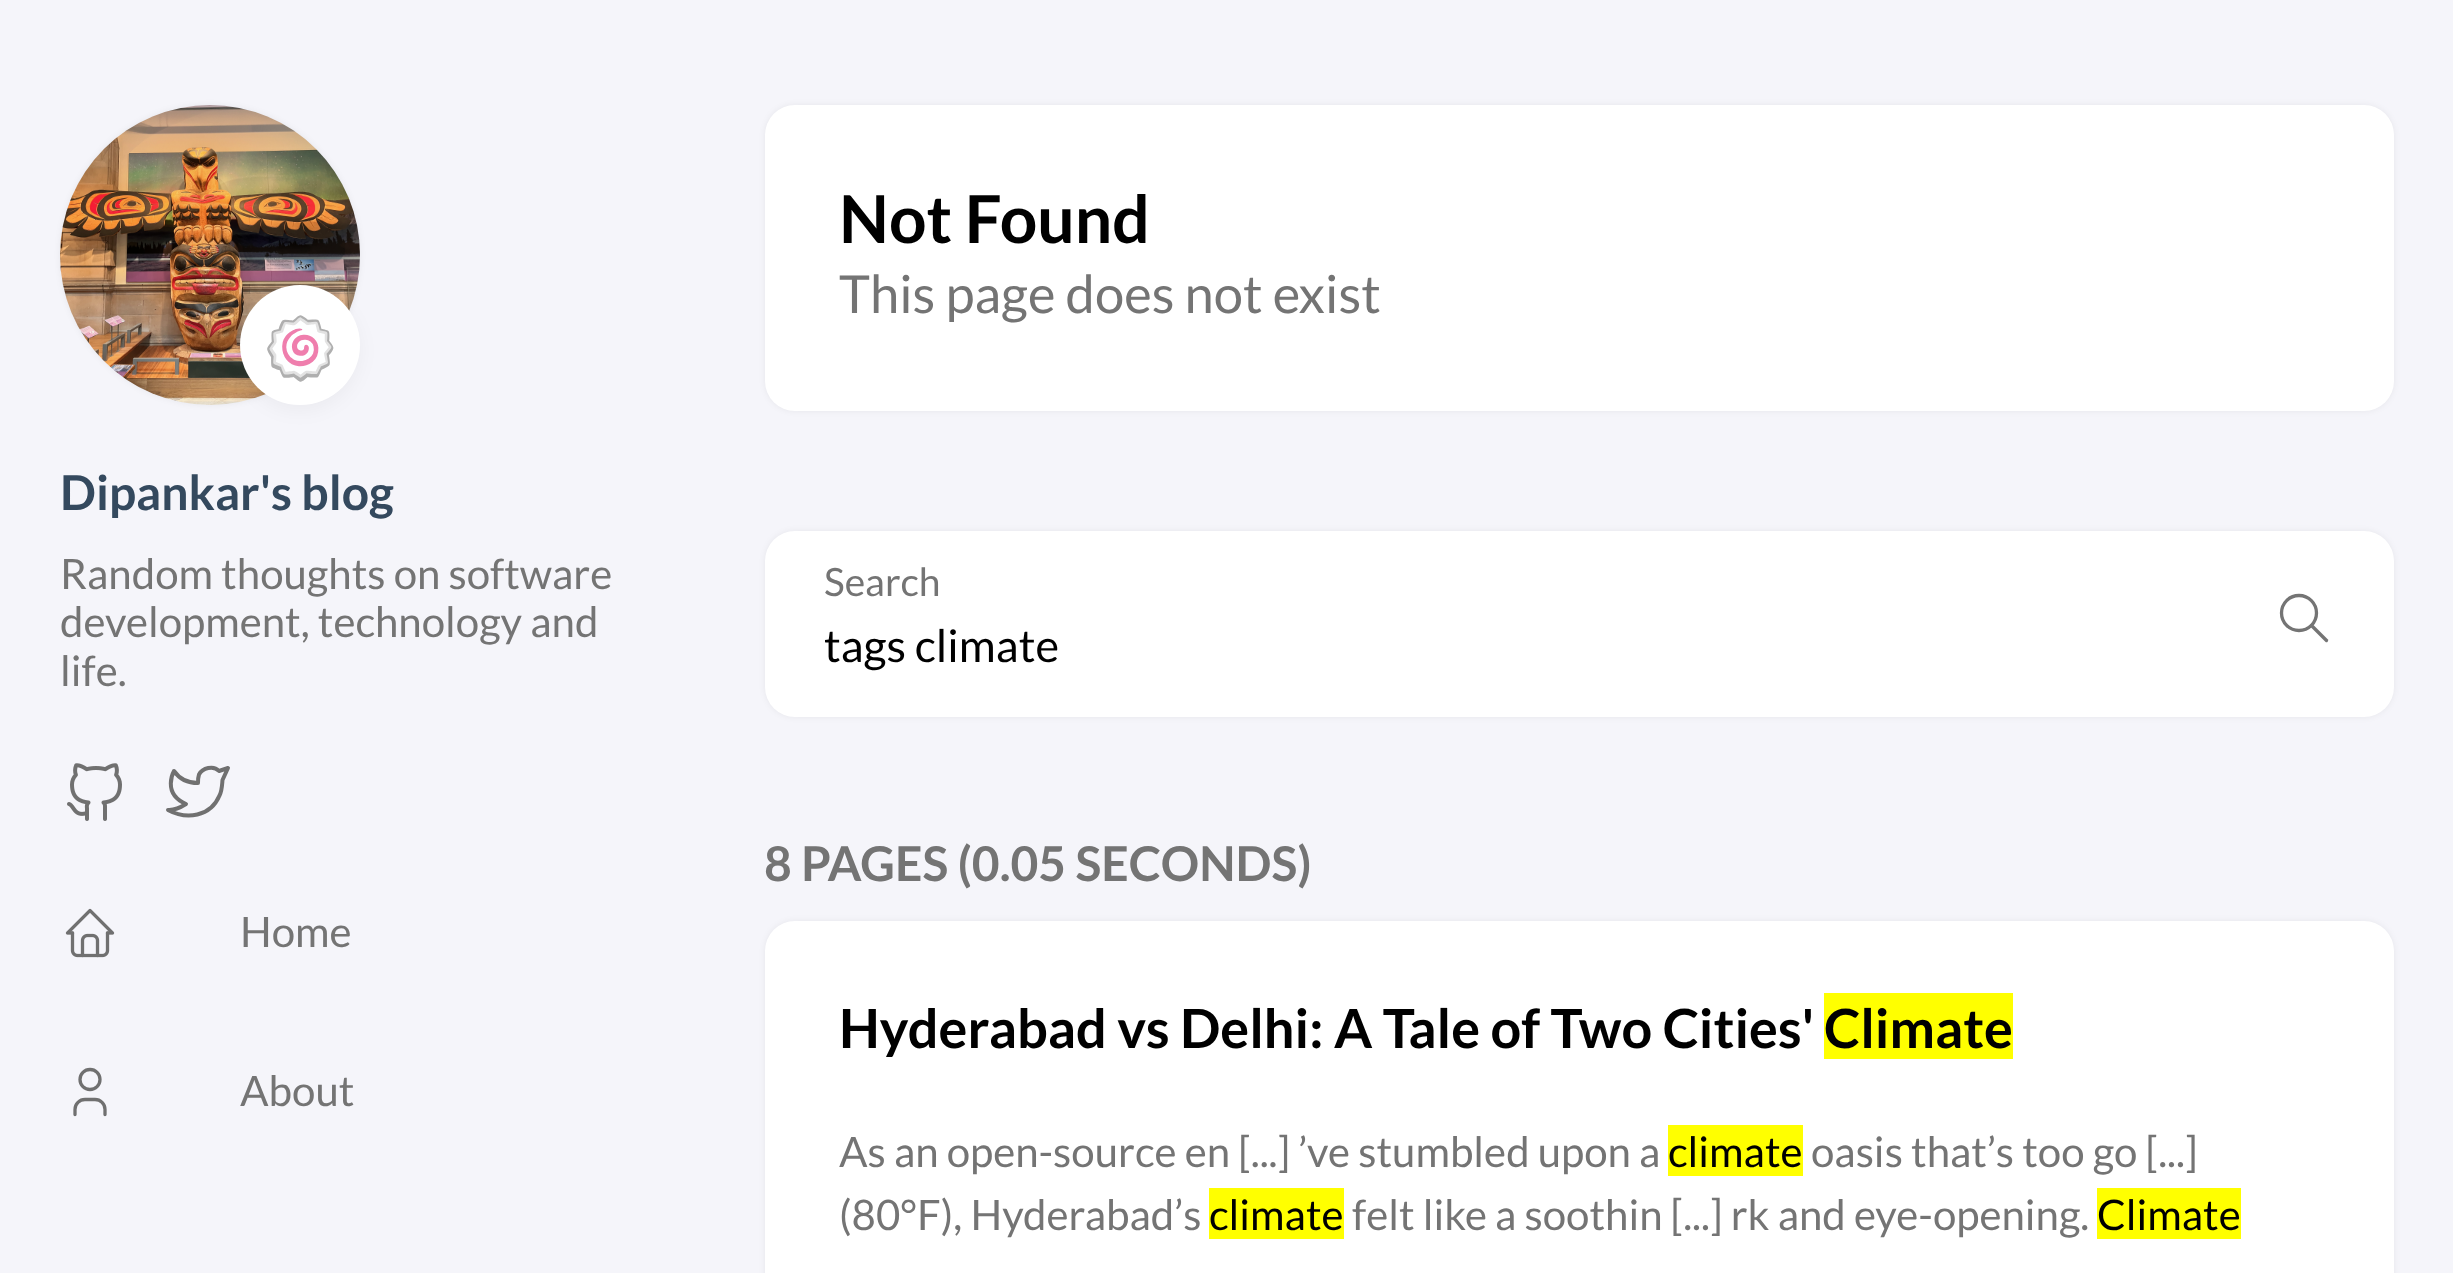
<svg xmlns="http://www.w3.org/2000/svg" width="2453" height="1273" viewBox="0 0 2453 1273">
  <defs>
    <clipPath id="clip1"><rect x="825" y="621" width="1509" height="51"/></clipPath>
  </defs>
  <rect width="100%" height="100%" fill="rgb(245,245,250)"/>
  <rect x="60" y="105" width="300" height="300" rx="150" fill="rgba(0,0,0,0.06)" filter="blur(3px)"/>
  <image x="60" y="105" width="300" height="300" href="pic1.png"/>
  <rect x="240" y="291" width="120" height="120" rx="60" fill="rgba(0,0,0,0.04)" filter="blur(9px)"/>
  <circle cx="300" cy="345" r="60" fill="rgb(255,255,255)"/>
  <text x="263" y="369" font-family="Noto Color Emoji" font-size="60" fill="rgb(0,0,0)">🍥</text>
  <text x="60" y="510" font-family="Lato" font-size="48" font-weight="bold" fill="rgb(52,73,94)">Dipankar's blog</text>
  <g font-family="Lato" font-size="42" fill="rgb(116,116,116)">
    <text>
      <tspan x="60" y="589">Random thoughts on software</tspan>
      <tspan x="60" y="637">development, technology and</tspan>
      <tspan x="60" y="686">life.</tspan>
    </text>
  </g>
  <image x="67" y="763" width="55" height="58" href="pic2.png"/>
  <path d="M228 768L219 771C213.5 765 202.5 768 199 774.5C198 777.5 198 780 198 783C188.5 783 179.5 779 174 771C174 771 161.5 793.5 186 804C180.5 807.5 175 810.5 168 810C186.5 820 210.5 817 219.5 795.5C222 790.5 222 785.5 222.5 780Z" fill="none" stroke="rgb(112,112,112)" stroke-width="4" stroke-linecap="round" stroke-linejoin="round"/>
  <image x="65" y="908" width="50" height="50" href="pic3.png"/>
  <text x="240" y="947" font-family="Lato" font-size="42" fill="rgb(116,116,116)">Home</text>
  <circle cx="90" cy="1079.5" r="10" fill="none" stroke="rgb(112,112,112)" stroke-width="3.3"/>
  <path d="M75 1114.5V1109.5C75 1104 79.5 1099.5 85 1099.5H95C100.5 1099.5 105 1104 105 1109.5V1114.5" fill="none" stroke="rgb(112,112,112)" stroke-width="3.3" stroke-linecap="round" stroke-linejoin="round"/>
  <text x="240" y="1106" font-family="Lato" font-size="42" fill="rgb(116,116,116)">About</text>
  <rect x="765" y="105" width="1629" height="306" rx="30" fill="rgba(0,0,0,0.06)" filter="blur(3px)"/>
  <rect x="765" y="105" width="1629" height="306" rx="30" fill="rgb(255,255,255)"/>
  <text x="839" y="243" font-family="Lato" font-size="66" font-weight="bold" fill="rgb(0,0,0)">Not Found</text>
  <text x="839" y="313" font-family="Lato" font-size="52.5" fill="rgb(116,116,116)">This page does not exist</text>
  <rect x="765" y="531" width="1629" height="186" rx="30" fill="rgba(0,0,0,0.06)" filter="blur(3px)"/>
  <rect x="765" y="531" width="1629" height="186" rx="30" fill="rgb(255,255,255)"/>
  <text x="824" y="596" font-family="Lato" font-size="39" fill="rgb(116,116,116)">Search</text>
  <circle cx="2299" cy="613" r="17.5" fill="none" stroke="rgb(116,116,116)" stroke-width="3.3"/>
  <path d="M2326.5 640.5L2311.5 625.5" fill="none" stroke="rgb(116,116,116)" stroke-width="3.3" stroke-linecap="round" stroke-linejoin="round"/>
  <g clip-path="url(#clip1)">
    <text x="824" y="662" font-family="Lato" font-size="45" fill="rgb(0,0,0)">tags climate</text>
  </g>
  <text x="764" y="881" font-family="Lato" font-size="48" font-weight="bold" fill="rgb(116,116,116)">8 PAGES (0.05 SECONDS)</text>
  <rect x="765" y="921" width="1629" height="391" rx="30" fill="rgba(0,0,0,0.06)" filter="blur(3px)"/>
  <rect x="765" y="921" width="1629" height="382" rx="30" fill="rgb(255,255,255)"/>
  <text x="839" y="1048" font-family="Lato" font-size="54" font-weight="bold" fill="rgb(0,0,0)">Hyderabad vs Delhi: A Tale of Two Cities'</text>
  <rect x="1824" y="993" width="189" height="66" fill="rgb(255,255,0)"/>
  <text x="1824" y="1048" font-family="Lato" font-size="54" font-weight="bold" fill="rgb(0,0,0)">Climate</text>
  <text x="839" y="1167" font-family="Lato" font-size="42" fill="rgb(116,116,116)">As an open-source en [...] ’ve stumbled upon a</text>
  <rect x="1668" y="1125" width="135" height="51" fill="rgb(255,255,0)"/>
  <text x="1668" y="1167" font-family="Lato" font-size="42" fill="rgb(0,0,0)">climate</text>
  <g font-family="Lato" font-size="42" fill="rgb(116,116,116)">
    <text x="1811" y="1167">oasis that’s too go [...]</text>
    <text x="839" y="1230">(80°F), Hyderabad’s</text>
  </g>
  <rect x="1209" y="1188" width="135" height="51" fill="rgb(255,255,0)"/>
  <text x="1209" y="1230" font-family="Lato" font-size="42" fill="rgb(0,0,0)">climate</text>
  <text x="1352" y="1230" font-family="Lato" font-size="42" fill="rgb(116,116,116)">felt like a soothin [...] rk and eye-opening.</text>
  <rect x="2097" y="1188" width="144" height="51" fill="rgb(255,255,0)"/>
  <text x="2097" y="1230" font-family="Lato" font-size="42" fill="rgb(0,0,0)">Climate</text>
</svg>
